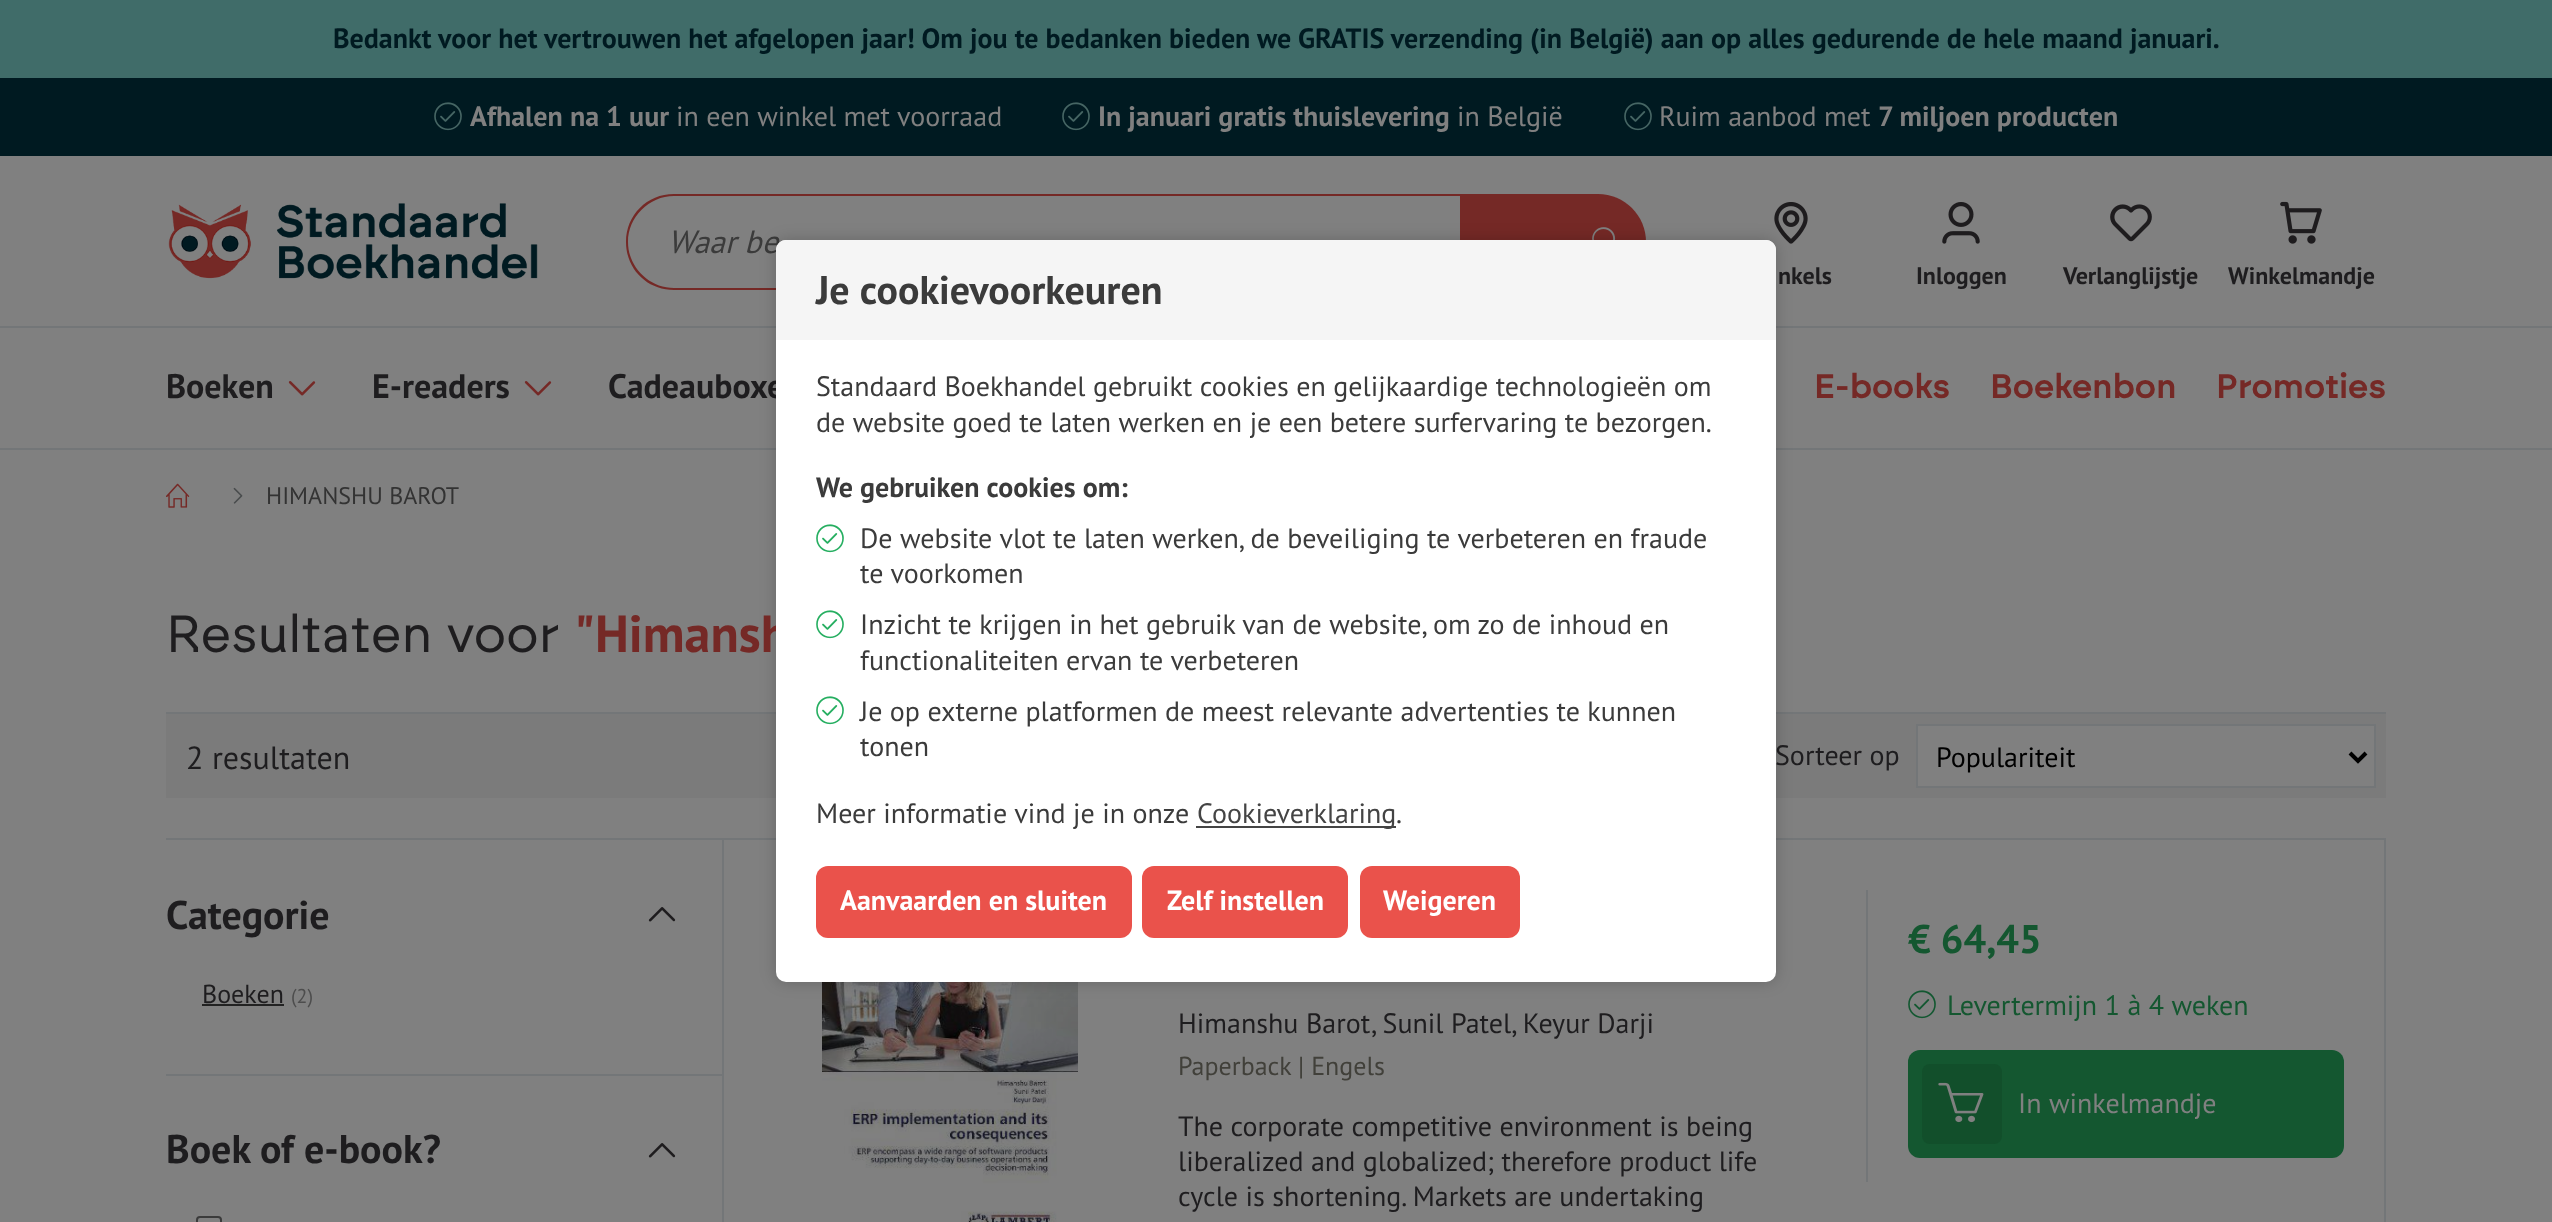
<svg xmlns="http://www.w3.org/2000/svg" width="2552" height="1222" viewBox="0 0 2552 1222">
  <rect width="100%" height="100%" fill="rgb(128,128,128)"/>
  <rect x="0" y="78" width="2552" height="78" fill="rgb(0,26,33)"/>
  <rect x="0" y="0" width="2552" height="78" fill="rgb(64,108,105)"/>
  <text x="333" y="48" font-family="PT Sans" font-size="28" font-weight="bold" fill="rgb(0,26,33)">Bedankt voor het vertrouwen het afgelopen jaar! Om jou te bedanken bieden we GRATIS verzending (in België) aan op alles gedurende de hele maand januari.</text>
  <image x="434" y="102" width="28" height="29" href="pic1.png"/>
  <text x="470" y="126" font-family="PT Sans" font-size="28" font-weight="bold" fill="rgb(128,128,128)">Afhalen na 1 uur</text>
  <text x="676" y="126" font-family="PT Sans" font-size="28" fill="rgb(128,128,128)">in een winkel met voorraad</text>
  <image x="1062" y="102" width="28" height="29" href="pic1.png"/>
  <text x="1098" y="126" font-family="PT Sans" font-size="28" font-weight="bold" fill="rgb(128,128,128)">In januari gratis thuislevering</text>
  <text x="1457" y="126" font-family="PT Sans" font-size="28" fill="rgb(128,128,128)">in België</text>
  <image x="1624" y="102" width="28" height="29" href="pic1.png"/>
  <text x="1659" y="126" font-family="PT Sans" font-size="28" fill="rgb(128,128,128)">Ruim aanbod met</text>
  <text x="1878" y="126" font-family="PT Sans" font-size="28" font-weight="bold" fill="rgb(128,128,128)">7 miljoen producten</text>
  <image x="168" y="203" width="370" height="76" href="pic2.png"/>
  <path d="M674 194H1430V290H674C647 290 626 269 626 242C626 215 647 194 674 194ZM674 196H1430V288H674C649 288 628 267 628 242C628 217 649 196 674 196Z" fill="rgb(117,41,38)" fill-rule="evenodd"/>
  <text x="668" y="253" font-family="PT Sans" font-size="32" font-style="italic" fill="rgb(59,59,59)">Waar be</text>
  <rect x="1430" y="194" width="30" height="2" fill="rgb(117,41,38)"/>
  <path d="M1460 194H1598C1624.5 194 1646 215.5 1646 242C1646 268.5 1624.5 290 1598 290H1460Z" fill="rgb(117,41,38)"/>
  <image x="1592" y="227" width="24" height="13" href="pic3.png"/>
  <image x="1774" y="202" width="34" height="42" href="pic4.png"/>
  <text x="1778" y="284" font-family="PT Sans" font-size="24" font-weight="bold" fill="rgb(30,29,31)">nkels</text>
  <image x="1942" y="202" width="38" height="42" href="pic5.png"/>
  <text x="1916" y="284" font-family="PT Sans" font-size="24" font-weight="bold" fill="rgb(30,29,31)">Inloggen</text>
  <image x="2110" y="204" width="42" height="38" href="pic6.png"/>
  <text x="2063" y="284" font-family="PT Sans" font-size="24" font-weight="bold" fill="rgb(30,29,31)">Verlanglijstje</text>
  <image x="2280" y="201" width="42" height="43" href="pic7.png"/>
  <text x="2228" y="284" font-family="PT Sans" font-size="24" font-weight="bold" fill="rgb(30,29,31)">Winkelmandje</text>
  <rect x="0" y="326" width="2552" height="2" fill="rgb(115,118,120)"/>
  <rect x="0" y="448" width="2552" height="2" fill="rgb(115,118,120)"/>
  <text x="166" y="398" font-family="PT Sans" font-size="34" font-weight="bold" fill="rgb(30,29,31)">Boeken</text>
  <image x="288" y="381" width="28" height="15" href="pic8.png"/>
  <text x="372" y="398" font-family="PT Sans" font-size="34" font-weight="bold" fill="rgb(30,29,31)">E-readers</text>
  <image x="524" y="381" width="28" height="15" href="pic8.png"/>
  <text x="608" y="398" font-family="PT Sans" font-size="34" font-weight="bold" fill="rgb(30,29,31)">Cadeauboxe</text>
  <g font-family="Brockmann" font-size="34" font-weight="600" fill="rgb(117,41,38)">
    <text x="1814" y="398">E-books</text>
    <text x="1990" y="398">Boekenbon</text>
    <text x="2216" y="398">Promoties</text>
  </g>
  <image x="166" y="483" width="24" height="25" href="pic9.png"/>
  <image x="233" y="487" width="10" height="17" href="pic10.png"/>
  <text x="266" y="504" font-family="PT Sans" font-size="24" fill="rgb(51,51,51)">HIMANSHU BAROT</text>
  <rect x="166" y="712" width="2220" height="2" fill="rgb(115,118,120)"/>
  <rect x="166" y="714" width="2220" height="84" fill="rgb(123,123,123)"/>
  <rect x="166" y="838" width="2220" height="2" fill="rgb(115,118,120)"/>
  <image x="822" y="982" width="256" height="240" href="pic13.png"/>
  <rect x="776" y="240" width="1000" height="742" rx="10" fill="rgba(0,0,0,0.2)" filter="blur(8px)"/>
  <text x="574" y="652" font-family="PT Sans" font-size="52" font-weight="bold" fill="rgb(117,41,38)">"Himansh</text>
  <rect x="776" y="240" width="1000" height="742" rx="10" fill="rgb(255,255,255)"/>
  <path d="M786 240H1766C1771.5 240 1776 244.5 1776 250V340H776V250C776 244.5 780.5 240 786 240Z" fill="rgb(245,245,245)"/>
  <text x="816" y="304" font-family="PT Sans" font-size="40" font-weight="bold" fill="rgb(59,59,59)">Je cookievoorkeuren</text>
  <g font-family="PT Sans" font-size="28" fill="rgb(59,59,59)">
    <text>
      <tspan x="816" y="396">Standaard Boekhandel gebruikt cookies en gelijkaardige technologieën om</tspan>
      <tspan x="816" y="432">de website goed te laten werken en je een betere surfervaring te bezorgen.</tspan>
    </text>
  </g>
  <text x="816" y="497" font-family="PT Sans" font-size="28" font-weight="bold" fill="rgb(59,59,59)">We gebruiken cookies om:</text>
  <image x="816" y="524" width="28" height="29" href="pic11.png"/>
  <g font-family="PT Sans" font-size="28" fill="rgb(59,59,59)">
    <text>
      <tspan x="860" y="548">De website vlot te laten werken, de beveiliging te verbeteren en fraude</tspan>
      <tspan x="860" y="583">te voorkomen</tspan>
    </text>
  </g>
  <image x="816" y="610" width="28" height="29" href="pic11.png"/>
  <g font-family="PT Sans" font-size="28" fill="rgb(59,59,59)">
    <text>
      <tspan x="860" y="634">Inzicht te krijgen in het gebruik van de website, om zo de inhoud en</tspan>
      <tspan x="860" y="670">functionaliteiten ervan te verbeteren</tspan>
    </text>
  </g>
  <image x="816" y="696" width="28" height="29" href="pic11.png"/>
  <g font-family="PT Sans" font-size="28" fill="rgb(59,59,59)">
    <text>
      <tspan x="860" y="721">Je op externe platformen de meest relevante advertenties te kunnen</tspan>
      <tspan x="860" y="756">tonen</tspan>
    </text>
    <text x="816" y="823">Meer informatie vind je in onze</text>
  </g>
  <rect x="1196" y="826" width="200" height="2" fill="rgb(68,68,68)"/>
  <text x="1197" y="823" font-family="PT Sans" font-size="28" fill="rgb(68,68,68)">Cookieverklaring</text>
  <text x="1396" y="823" font-family="PT Sans" font-size="28" fill="rgb(59,59,59)">.</text>
  <rect x="816" y="866" width="316" height="72" rx="12" fill="rgb(234,82,75)"/>
  <text x="840" y="910" font-family="PT Sans" font-size="28" font-weight="bold" fill="rgb(255,255,255)">Aanvaarden en sluiten</text>
  <rect x="1142" y="866" width="206" height="72" rx="12" fill="rgb(234,82,75)"/>
  <text x="1167" y="910" font-family="PT Sans" font-size="28" font-weight="bold" fill="rgb(255,255,255)">Zelf instellen</text>
  <rect x="1360" y="866" width="160" height="72" rx="12" fill="rgb(234,82,75)"/>
  <text x="1383" y="910" font-family="PT Sans" font-size="28" font-weight="bold" fill="rgb(255,255,255)">Weigeren</text>
  <text x="166" y="652" font-family="Brockmann" font-size="52" fill="rgb(30,29,31)">Resultaten voor</text>
  <text x="186" y="769" font-family="PT Sans" font-size="32" fill="rgb(30,29,31)">2 resultaten</text>
  <text x="1775" y="765" font-family="PT Sans" font-size="28" fill="rgb(30,29,31)">Sorteer op</text>
  <rect x="1917" y="725" width="458" height="62" fill="rgb(128,128,128)" stroke="rgb(115,118,120)" stroke-width="2"/>
  <path d="M2350 753L2358 761L2366 753" fill="none" stroke="rgb(0,0,0)" stroke-width="4"/>
  <text x="1936" y="767" font-family="PT Sans" font-size="28" fill="rgb(0,0,0)">Populariteit</text>
  <text x="166" y="929" font-family="PT Sans" font-size="40" font-weight="bold" fill="rgb(30,29,31)">Categorie</text>
  <image x="648" y="907" width="28" height="15" href="pic12.png"/>
  <text x="202" y="1003" font-family="PT Sans" font-size="26" fill="rgb(30,29,31)">Boeken</text>
  <rect x="202" y="1004" width="82" height="2" fill="rgb(34,34,34)"/>
  <text x="291" y="1003" font-family="PT Sans" font-size="20" fill="rgb(77,77,77)">(2)</text>
  <rect x="166" y="1074" width="556" height="2" fill="rgb(115,118,120)"/>
  <text x="166" y="1163" font-family="PT Sans" font-size="40" font-weight="bold" fill="rgb(30,29,31)">Boek of e-book?</text>
  <image x="648" y="1143" width="28" height="15" href="pic12.png"/>
  <rect x="197" y="1217" width="24" height="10" rx="3" fill="none" stroke="rgb(59,59,59)" stroke-width="2"/>
  <rect x="2384" y="838" width="2" height="384" fill="rgb(115,118,120)"/>
  <rect x="722" y="838" width="2" height="384" fill="rgb(115,118,120)"/>
  <g font-family="PT Sans" font-size="28" fill="rgb(30,29,31)">
    <text x="1178" y="1033">Himanshu Barot</text>
    <text x="1371" y="1033">, Sunil Patel, Keyur Darji</text>
  </g>
  <g font-family="PT Sans" font-size="26" fill="rgb(65,64,58)">
    <text x="1178" y="1075">Paperback</text>
    <text x="1298" y="1075">| Engels</text>
  </g>
  <g font-family="PT Sans" font-size="28" fill="rgb(30,29,31)">
    <text>
      <tspan x="1178" y="1136">The corporate competitive environment is being</tspan>
      <tspan x="1178" y="1171">liberalized and globalized; therefore product life</tspan>
      <tspan x="1178" y="1206">cycle is shortening. Markets are undertaking</tspan>
    </text>
  </g>
  <rect x="1866" y="890" width="2" height="292" fill="rgb(115,118,120)"/>
  <text x="1908" y="953" font-family="PT Sans" font-size="40" font-weight="bold" fill="rgb(20,87,48)">€ 64,45</text>
  <image x="1908" y="990" width="28" height="29" href="pic14.png"/>
  <text x="1947" y="1015" font-family="PT Sans" font-size="28" fill="rgb(20,87,48)">Levertermijn 1 à 4 weken</text>
  <rect x="1908" y="1050" width="436" height="108" rx="12" fill="rgb(20,87,48)"/>
  <rect x="1922" y="1064" width="80" height="80" rx="8" fill="rgb(18,79,43)"/>
  <image x="1938" y="1082" width="46" height="41" href="pic15.png"/>
  <text x="2018" y="1113" font-family="PT Sans" font-size="28" fill="rgb(128,128,128)">In winkelmandje</text>
</svg>
